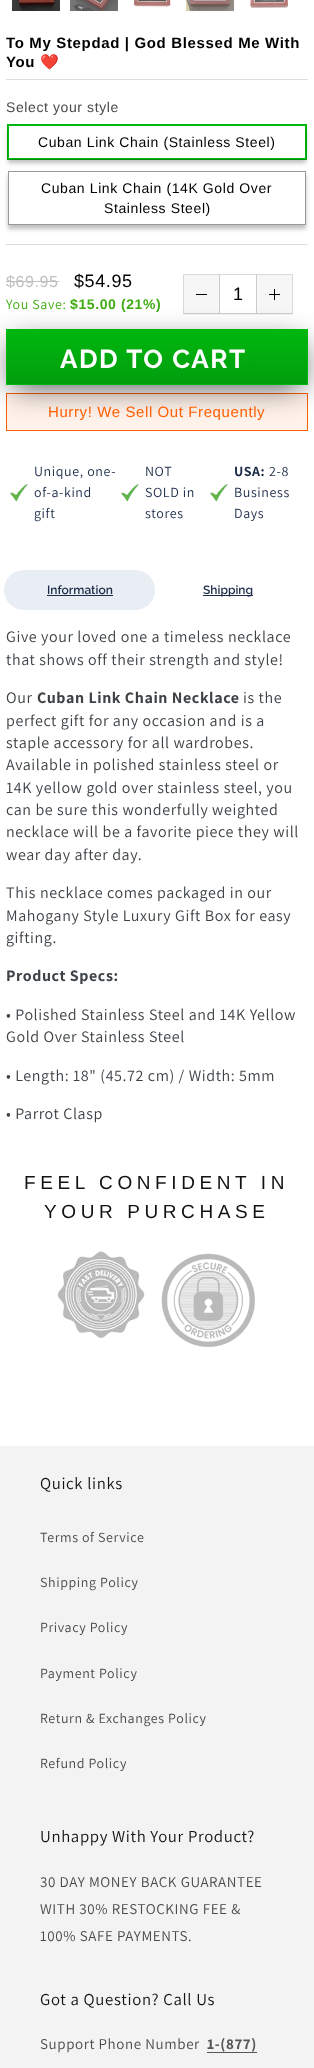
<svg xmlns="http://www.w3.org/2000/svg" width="314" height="2068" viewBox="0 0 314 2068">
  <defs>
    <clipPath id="clip1"><path d="M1 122H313V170H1ZM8 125H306V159H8Z" clip-rule="evenodd"/></clipPath>
    <clipPath id="clip2"><path d="M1 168H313V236H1ZM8 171H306V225H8Z" clip-rule="evenodd"/></clipPath>
    <clipPath id="clip3"><rect x="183" y="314" width="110" height="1"/></clipPath>
    <linearGradient id="g1" gradientUnits="userSpaceOnUse" x1="157" y1="384" x2="157" y2="330"><stop offset="0" stop-color="rgb(0,158,13)"/><stop offset="1" stop-color="rgb(0,183,15)"/></linearGradient>
  </defs>
  <rect width="100%" height="100%" fill="rgb(255,255,255)"/>
  <image x="12" y="0" width="48" height="11" href="pic1.png"/>
  <image x="70" y="0" width="48" height="11" href="pic2.png"/>
  <image x="133" y="0" width="40" height="8" href="pic3.png"/>
  <image x="186" y="0" width="48" height="11" href="pic4.png"/>
  <image x="249" y="0" width="40" height="9" href="pic5.png"/>
  <rect x="6" y="79" width="302" height="1" fill="rgb(221,221,221)"/>
  <g font-family="Liberation Sans" font-size="15" font-weight="bold" letter-spacing="0.65" fill="rgb(0,0,0)">
    <text>
      <tspan x="6" y="48">To My Stepdad | God Blessed Me With</tspan>
      <tspan x="6" y="67">You</tspan>
    </text>
  </g>
  <text x="40" y="67" font-family="Noto Color Emoji" font-size="15" font-weight="bold" letter-spacing="0.65" fill="rgb(0,0,0)">❤️</text>
  <rect x="6" y="244" width="302" height="1" fill="rgb(221,221,221)"/>
  <text x="6" y="112" font-family="Liberation Sans" font-size="14" letter-spacing="0.6" fill="rgb(74,74,74)">Select your style</text>
  <rect x="7.5" y="124.5" width="299" height="35" fill="none" stroke="rgb(0,183,15)"/>
  <g clip-path="url(#clip1)">
    <rect x="8" y="129" width="298" height="34" fill="rgba(0,0,0,0.25)" filter="blur(2px)"/>
  </g>
  <rect x="8.5" y="125.5" width="297" height="33" fill="none" stroke="rgb(0,183,15)"/>
  <text x="38" y="147" font-family="Liberation Sans" font-size="14" letter-spacing="0.6" fill="rgb(0,0,0)">Cuban Link Chain (Stainless Steel)</text>
  <g clip-path="url(#clip2)">
    <rect x="8" y="175" width="298" height="54" fill="rgba(0,0,0,0.25)" filter="blur(2px)"/>
  </g>
  <rect x="8.5" y="171.5" width="297" height="53" fill="none" stroke="rgb(153,153,153)"/>
  <g font-family="Liberation Sans" font-size="14" letter-spacing="0.6" fill="rgb(0,0,0)">
    <text x="41" y="193">Cuban Link Chain (14K Gold Over</text>
    <text x="104" y="213">Stainless Steel)</text>
  </g>
  <text x="6" y="287" font-family="Liberation Sans" font-size="16" letter-spacing="0.6" fill="rgb(191,191,191)">$69.95</text>
  <rect x="6" y="281" width="53" height="1" fill="rgb(191,191,191)"/>
  <text x="74" y="287" font-family="Liberation Sans" font-size="18" letter-spacing="0.6" fill="rgb(0,0,0)">$54.95</text>
  <text x="6" y="309" font-family="Assistant" font-size="14" letter-spacing="0.6" fill="rgb(64,172,20)">You Save:</text>
  <text x="70" y="309" font-family="Liberation Sans" font-size="14" font-weight="bold" letter-spacing="0.6" fill="rgb(64,172,20)">$15.00 (21%)</text>
  <g clip-path="url(#clip3)">
    <rect x="183" y="275" width="110" height="40" fill="rgba(0,0,0,0.05)" filter="blur(0.5px)"/>
  </g>
  <path d="M183 274H293L292 275H184Z" fill="rgb(217,217,217)"/>
  <path d="M293 274V314L292 313V275Z" fill="rgba(0,0,0,0.15)"/>
  <path d="M293 314H183L184 313H292Z" fill="rgba(0,0,0,0.2)"/>
  <path d="M183 314V274L184 275V313Z" fill="rgba(0,0,0,0.15)"/>
  <rect x="184" y="275" width="35" height="38" fill="rgb(246,246,246)"/>
  <rect x="219" y="275" width="1" height="38" fill="rgb(204,204,204)"/>
  <rect x="196" y="294" width="11" height="1" fill="rgb(0,0,0)"/>
  <text x="233" y="300" font-family="Liberation Sans" font-size="18" fill="rgb(0,0,0)">1</text>
  <rect x="257" y="275" width="35" height="38" fill="rgb(246,246,246)"/>
  <rect x="256" y="275" width="1" height="38" fill="rgb(204,204,204)"/>
  <rect x="274" y="289" width="1" height="11" fill="rgb(0,0,0)"/>
  <rect x="269" y="294" width="11" height="1" fill="rgb(0,0,0)"/>
  <rect x="6.5" y="393.5" width="301" height="37" fill="rgb(255,242,235)" stroke="rgb(255,95,1)"/>
  <rect x="12" y="343" width="290" height="44" fill="rgba(0,0,0,0.7)" filter="blur(15px)"/>
  <rect x="7" y="330" width="300" height="54" fill="url(#g1)"/>
  <rect x="6.5" y="329.5" width="301" height="55" fill="none" stroke="rgb(0,183,15)"/>
  <text x="60" y="368" font-family="Raleway" font-size="26" font-weight="bold" letter-spacing="1.5" fill="rgb(255,255,255)">ADD TO CART</text>
  <text x="48" y="417" font-family="Liberation Sans" font-size="15" letter-spacing="0.6" fill="rgb(255,95,1)">Hurry! We Sell Out Frequently</text>
  <text x="34" y="476" font-family="Assistant" font-size="14" letter-spacing="0.6" fill="rgb(27,43,72)">Unique, one-</text>
  <image x="10" y="484" width="18" height="18" href="pic6.png"/>
  <g font-family="Assistant" font-size="14" letter-spacing="0.6" fill="rgb(27,43,72)">
    <text>
      <tspan x="34" y="497">of-a-kind</tspan>
      <tspan x="34" y="518">gift</tspan>
    </text>
    <text x="145" y="476">NOT</text>
  </g>
  <image x="121" y="484" width="18" height="18" href="pic6.png"/>
  <g font-family="Assistant" font-size="14" letter-spacing="0.6" fill="rgb(27,43,72)">
    <text>
      <tspan x="145" y="497">SOLD in</tspan>
      <tspan x="145" y="518">stores</tspan>
    </text>
  </g>
  <text x="234" y="476" font-family="Assistant" font-size="14" font-weight="bold" letter-spacing="0.6" fill="rgb(27,43,72)">USA:</text>
  <text x="269" y="476" font-family="Assistant" font-size="14" letter-spacing="0.6" fill="rgb(27,43,72)">2-8</text>
  <image x="210" y="484" width="18" height="18" href="pic6.png"/>
  <g font-family="Assistant" font-size="14" letter-spacing="0.6" fill="rgb(27,43,72)">
    <text>
      <tspan x="234" y="497">Business</tspan>
      <tspan x="234" y="518">Days</tspan>
    </text>
  </g>
  <rect x="4" y="570" width="151" height="40" rx="20" fill="rgb(232,238,244)"/>
  <text x="47" y="594" font-family="Raleway" font-size="12" font-weight="600" fill="rgb(27,43,72)">Information</text>
  <rect x="47" y="595" width="66" height="1" fill="rgb(27,43,72)"/>
  <rect x="203" y="595" width="50" height="1" fill="rgb(27,43,72)"/>
  <text x="203" y="594" font-family="Raleway" font-size="12" font-weight="600" fill="rgb(27,43,72)">Shipping</text>
  <g font-family="Assistant" font-size="16" letter-spacing="0.6" fill="rgb(61,66,70)">
    <text>
      <tspan x="6" y="642">Give your loved one a timeless necklace</tspan>
      <tspan x="6" y="665">that shows off their strength and style!</tspan>
    </text>
    <text x="6" y="703">Our</text>
  </g>
  <text x="37" y="703" font-family="Assistant" font-size="16" font-weight="bold" letter-spacing="0.6" fill="rgb(61,66,70)">Cuban Link Chain Necklace</text>
  <g font-family="Assistant" font-size="16" letter-spacing="0.6" fill="rgb(61,66,70)">
    <text x="243" y="703">is the</text>
    <text>
      <tspan x="6" y="726">perfect gift for any occasion and is a</tspan>
      <tspan x="6" y="748">staple accessory for all wardrobes.</tspan>
      <tspan x="6" y="770">Available in polished stainless steel or</tspan>
      <tspan x="6" y="793">14K yellow gold over stainless steel, you</tspan>
      <tspan x="6" y="815">can be sure this wonderfully weighted</tspan>
      <tspan x="6" y="837">necklace will be a favorite piece they will</tspan>
      <tspan x="6" y="860">wear day after day.</tspan>
    </text>
    <text>
      <tspan x="6" y="898">This necklace comes packaged in our</tspan>
      <tspan x="6" y="921">Mahogany Style Luxury Gift Box for easy</tspan>
      <tspan x="6" y="943">gifting.</tspan>
    </text>
  </g>
  <text x="6" y="981" font-family="Assistant" font-size="16" font-weight="bold" letter-spacing="0.6" fill="rgb(61,66,70)">Product Specs:</text>
  <g font-family="Assistant" font-size="16" letter-spacing="0.6" fill="rgb(61,66,70)">
    <text>
      <tspan x="6" y="1020">• Polished Stainless Steel and 14K Yellow</tspan>
      <tspan x="6" y="1042">Gold Over Stainless Steel</tspan>
    </text>
    <text x="6" y="1081">• Length: 18" (45.72 cm) / Width: 5mm</text>
    <text x="6" y="1119">• Parrot Clasp</text>
  </g>
  <g font-family="Liberation Sans" font-size="19" letter-spacing="4.6" fill="rgb(18,18,18)">
    <text x="24" y="1189">FEEL CONFIDENT IN</text>
    <text x="44" y="1218">YOUR PURCHASE</text>
  </g>
  <image x="57" y="1251" width="88" height="87" href="pic7.png"/>
  <image x="161" y="1253" width="94" height="94" href="pic8.png"/>
  <rect x="0" y="1446" width="314" height="622" fill="rgb(243,243,243)"/>
  <text x="40" y="1489" font-family="Assistant" font-size="16.75" letter-spacing="0.65" fill="rgb(18,18,18)">Quick links</text>
  <g font-family="Assistant" font-size="14" letter-spacing="0.6" fill="rgb(74,74,74)">
    <text x="40" y="1542">Terms of Service</text>
    <text x="40" y="1587">Shipping Policy</text>
    <text x="40" y="1632">Privacy Policy</text>
    <text x="40" y="1678">Payment Policy</text>
    <text x="40" y="1723">Return &amp; Exchanges Policy</text>
    <text x="40" y="1768">Refund Policy</text>
  </g>
  <text x="40" y="1842" font-family="Assistant" font-size="16.75" letter-spacing="0.65" fill="rgb(18,18,18)">Unhappy With Your Product?</text>
  <g font-family="Assistant" font-size="15" letter-spacing="0.6" fill="rgb(74,74,74)">
    <text>
      <tspan x="40" y="1887">30 DAY MONEY BACK GUARANTEE</tspan>
      <tspan x="40" y="1914">WITH 30% RESTOCKING FEE &amp;</tspan>
      <tspan x="40" y="1941">100% SAFE PAYMENTS.</tspan>
    </text>
  </g>
  <text x="40" y="2005" font-family="Assistant" font-size="16.75" letter-spacing="0.65" fill="rgb(18,18,18)">Got a Question? Call Us</text>
  <text x="40" y="2049" font-family="Assistant" font-size="15" letter-spacing="0.6" fill="rgb(74,74,74)">Support Phone Number</text>
  <text x="207" y="2049" font-family="Assistant" font-size="15" font-weight="bold" letter-spacing="0.6" fill="rgb(86,86,86)">1-(877)</text>
  <rect x="207" y="2052" width="50" height="1" fill="rgb(86,86,86)"/>
</svg>
